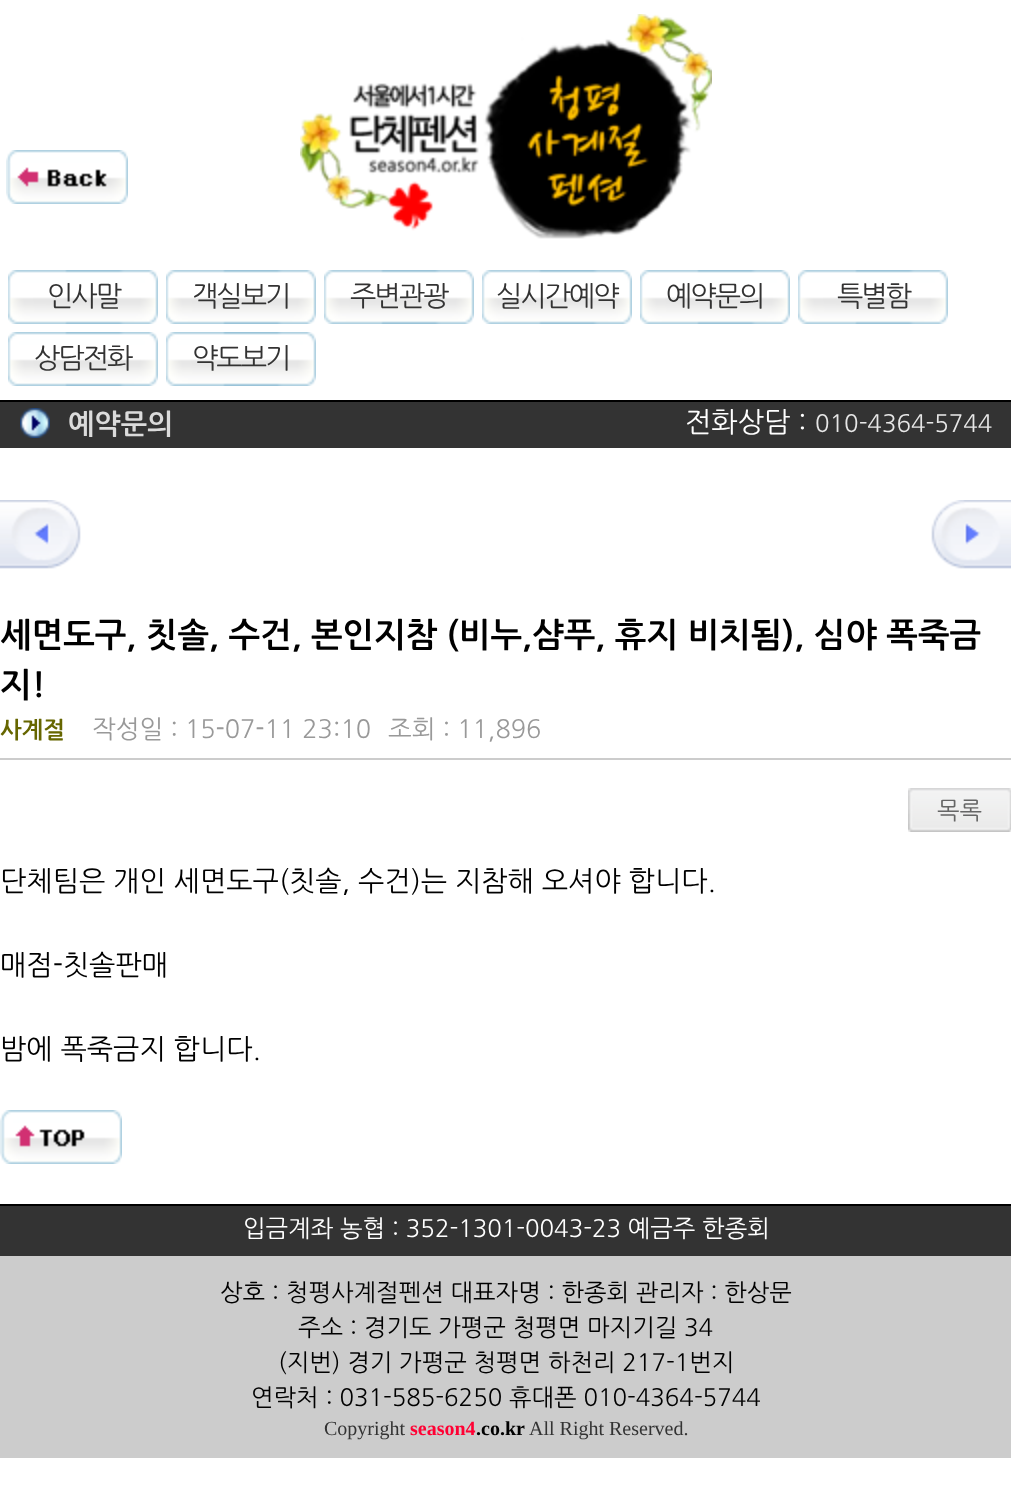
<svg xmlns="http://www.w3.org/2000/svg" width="1011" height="1497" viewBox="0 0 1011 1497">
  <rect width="100%" height="100%" fill="rgb(255,255,255)"/>
  <image x="6" y="150" width="122" height="54" href="pic1.png"/>
  <image x="300" y="14" width="412" height="225" href="pic2.png"/>
  <image x="8" y="270" width="150" height="54" href="pic3.png"/>
  <text x="47" y="306" font-family="NanumGothic" font-size="28" letter-spacing="-2" fill="rgb(51,51,51)">인사말</text>
  <image x="166" y="270" width="150" height="54" href="pic3.png"/>
  <text x="192" y="306" font-family="NanumGothic" font-size="28" letter-spacing="-2" fill="rgb(51,51,51)">객실보기</text>
  <image x="324" y="270" width="150" height="54" href="pic3.png"/>
  <text x="350" y="306" font-family="NanumGothic" font-size="28" letter-spacing="-2" fill="rgb(51,51,51)">주변관광</text>
  <image x="482" y="270" width="150" height="54" href="pic3.png"/>
  <text x="496" y="306" font-family="NanumGothic" font-size="28" letter-spacing="-2" fill="rgb(51,51,51)">실시간예약</text>
  <image x="640" y="270" width="150" height="54" href="pic3.png"/>
  <text x="666" y="306" font-family="NanumGothic" font-size="28" letter-spacing="-2" fill="rgb(51,51,51)">예약문의</text>
  <image x="798" y="270" width="150" height="54" href="pic3.png"/>
  <text x="837" y="306" font-family="NanumGothic" font-size="28" letter-spacing="-2" fill="rgb(51,51,51)">특별함</text>
  <image x="8" y="332" width="150" height="54" href="pic3.png"/>
  <text x="34" y="368" font-family="NanumGothic" font-size="28" letter-spacing="-2" fill="rgb(51,51,51)">상담전화</text>
  <image x="166" y="332" width="150" height="54" href="pic3.png"/>
  <text x="192" y="368" font-family="NanumGothic" font-size="28" letter-spacing="-2" fill="rgb(51,51,51)">약도보기</text>
  <rect x="0" y="402" width="1011" height="46" fill="rgb(51,51,51)"/>
  <rect x="0" y="400" width="1011" height="2" fill="rgb(0,0,0)"/>
  <image x="20" y="408" width="30" height="30" href="pic4.png"/>
  <text x="68" y="434" font-family="NanumGothic" font-size="28" font-weight="bold" fill="rgb(219,219,219)">예약문의</text>
  <text x="685" y="432" font-family="NanumGothic" font-size="28" fill="rgb(255,255,255)">전화상담 :</text>
  <text x="815" y="432" font-family="NanumGothic" font-size="24" fill="rgb(231,231,231)">010-4364-5744</text>
  <image x="0" y="500" width="81" height="69" href="pic5.png"/>
  <image x="931" y="500" width="80" height="69" href="pic6.png"/>
  <rect x="0" y="758" width="1011" height="2" fill="rgb(204,204,204)"/>
  <g font-family="NanumGothic" font-size="33.6" font-weight="bold" fill="rgb(0,0,0)">
    <text x="0" y="647">세면도구, 칫솔, 수건,</text>
    <text x="311" y="647">본인지참 (비누,샴푸, 휴지 비치됨), 심야 폭죽금</text>
    <text x="0" y="697">지!</text>
  </g>
  <text x="0" y="738" font-family="NanumGothic" font-size="23" font-weight="bold" fill="rgb(102,102,0)">사계절</text>
  <g font-family="NanumGothic" font-size="25.25" fill="rgb(153,153,153)">
    <text x="92" y="738">작성일 : 15-07-11 23:10</text>
    <text x="388" y="738">조회 : 11,896</text>
  </g>
  <rect x="908" y="788" width="103" height="44" fill="rgb(241,241,241)"/>
  <image x="908" y="788" width="103" height="44" href="pic7.png"/>
  <text x="937" y="819" font-family="NanumGothic" font-size="24" fill="rgb(102,102,102)">목록</text>
  <g font-family="NanumGothic" font-size="28" fill="rgb(0,0,0)">
    <text x="0" y="891">단체팀은 개인 세면도구(칫솔, 수건)는 지참해 오셔야 합니다.</text>
    <text x="0" y="975">매점-칫솔판매</text>
    <text x="0" y="1059">밤에 폭죽금지 합니다.</text>
  </g>
  <image x="0" y="1110" width="122" height="54" href="pic8.png"/>
  <rect x="0" y="1206" width="1011" height="50" fill="rgb(51,51,51)"/>
  <rect x="0" y="1204" width="1011" height="2" fill="rgb(0,0,0)"/>
  <text x="243" y="1237" font-family="NanumGothic" font-size="24" fill="rgb(255,255,255)">입금계좌 농협 : 352-1301-0043-23 예금주 한종회</text>
  <rect x="0" y="1256" width="1011" height="202" fill="rgb(204,204,204)"/>
  <g font-family="NanumGothic" font-size="24" fill="rgb(0,0,0)">
    <text x="220" y="1301">상호 : 청평사계절펜션 대표자명 : 한종회 관리자 : 한상문</text>
    <text x="298" y="1336">주소 : 경기도 가평군 청평면 마지기길 34</text>
    <text x="278" y="1371">(지번) 경기 가평군 청평면 하천리 217-1번지</text>
    <text x="251" y="1406">연락처 : 031-585-6250 휴대폰 010-4364-5744</text>
  </g>
  <text x="324" y="1435" font-family="Liberation Serif" font-size="20" fill="rgb(51,51,51)">Copyright</text>
  <text x="410" y="1435" font-family="Liberation Serif" font-size="20" font-weight="bold" fill="rgb(255,0,51)">season4</text>
  <text x="476" y="1435" font-family="Liberation Serif" font-size="20" font-weight="bold" fill="rgb(0,0,0)">.co.kr</text>
  <text x="529" y="1435" font-family="Liberation Serif" font-size="20" fill="rgb(51,51,51)">All Right Reserved.</text>
</svg>
